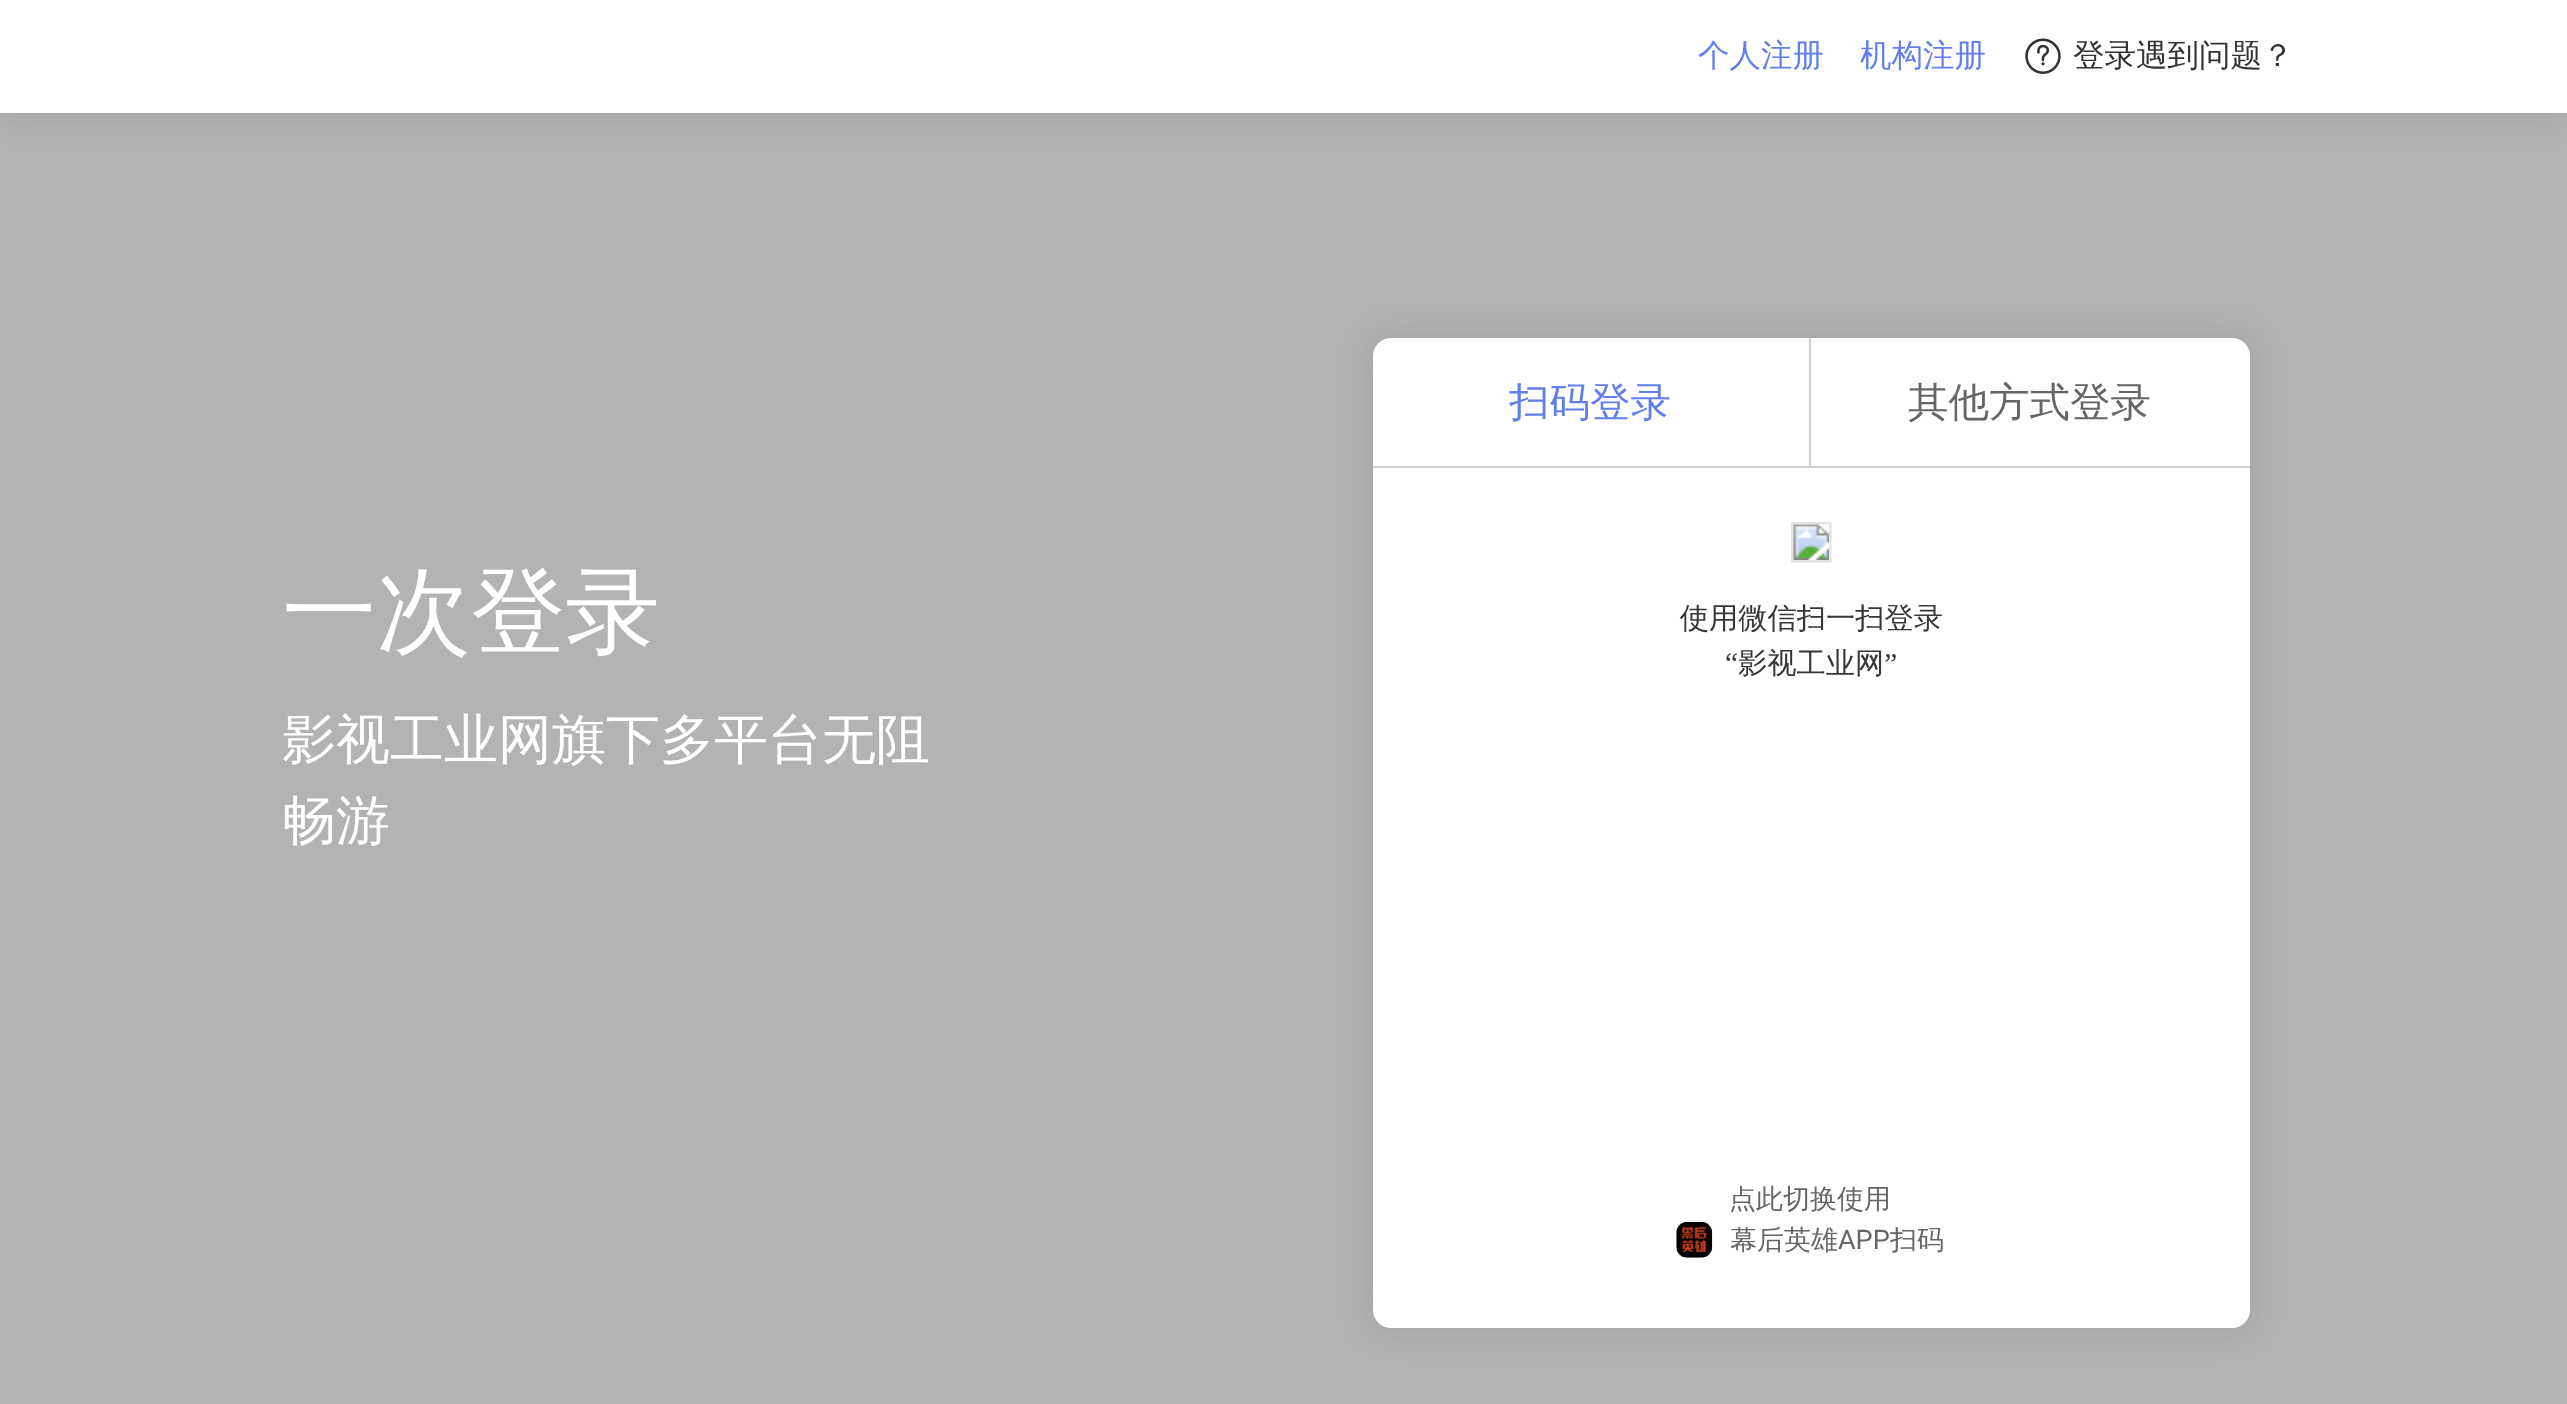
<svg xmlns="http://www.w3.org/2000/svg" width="2567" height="1404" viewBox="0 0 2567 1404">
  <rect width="100%" height="100%" fill="rgb(179,179,179)"/>
  <rect x="0" y="0" width="2567" height="113" fill="rgba(0,0,0,0.1)" filter="blur(17px)"/>
  <rect x="0" y="0" width="2567" height="113" fill="rgb(255,255,255)"/>
  <g font-family="WenQuanYi Zen Hei" font-size="31.5" font-weight="500" fill="rgb(98,127,233)">
    <text x="1698" y="66">个人注册</text>
    <text x="1860" y="66">机构注册</text>
  </g>
  <image x="2025" y="38" width="36" height="36" href="pic1.png"/>
  <text x="2073" y="66" font-family="WenQuanYi Zen Hei" font-size="31.5" font-weight="500" fill="rgb(51,51,51)">登录遇到问题？</text>
  <text x="282" y="644" font-family="WenQuanYi Zen Hei" font-size="94.5" font-weight="500" fill="rgb(255,255,255)">一次登录</text>
  <g font-family="WenQuanYi Zen Hei" font-size="54" font-weight="500" fill="rgb(255,255,255)">
    <text>
      <tspan x="282" y="758">影视工业网旗下多平台无阻</tspan>
      <tspan x="282" y="839">畅游</tspan>
    </text>
  </g>
  <rect x="1373" y="338" width="877" height="990" rx="18" fill="rgba(0,0,0,0.1)" filter="blur(17px)"/>
  <rect x="1373" y="338" width="877" height="990" rx="18" fill="rgb(255,255,255)"/>
  <rect x="1809" y="338" width="2" height="130" fill="rgb(207,207,207)"/>
  <rect x="1373" y="466" width="877" height="2" fill="rgb(207,207,207)"/>
  <text x="1509" y="416" font-family="WenQuanYi Zen Hei" font-size="40.5" font-weight="500" fill="rgb(98,127,233)">扫码登录</text>
  <text x="1908" y="416" font-family="WenQuanYi Zen Hei" font-size="40.5" font-weight="500" fill="rgb(102,102,102)">其他方式登录</text>
  <image x="1679" y="522" width="263" height="155" href="pic2.png"/>
  <text x="1729" y="1208" font-family="WenQuanYi Zen Hei" font-size="27" font-weight="500" fill="rgb(102,102,102)">点此切换使用</text>
  <image x="1676" y="1221" width="37" height="37" href="pic3.png"/>
  <text x="1730" y="1249" font-family="WenQuanYi Zen Hei" font-size="27" font-weight="500" fill="rgb(102,102,102)">幕后英雄</text>
  <text x="1838" y="1249" font-family="Roboto" font-size="27" fill="rgb(102,102,102)">APP</text>
  <text x="1890" y="1249" font-family="WenQuanYi Zen Hei" font-size="27" font-weight="500" fill="rgb(102,102,102)">扫码</text>
</svg>
